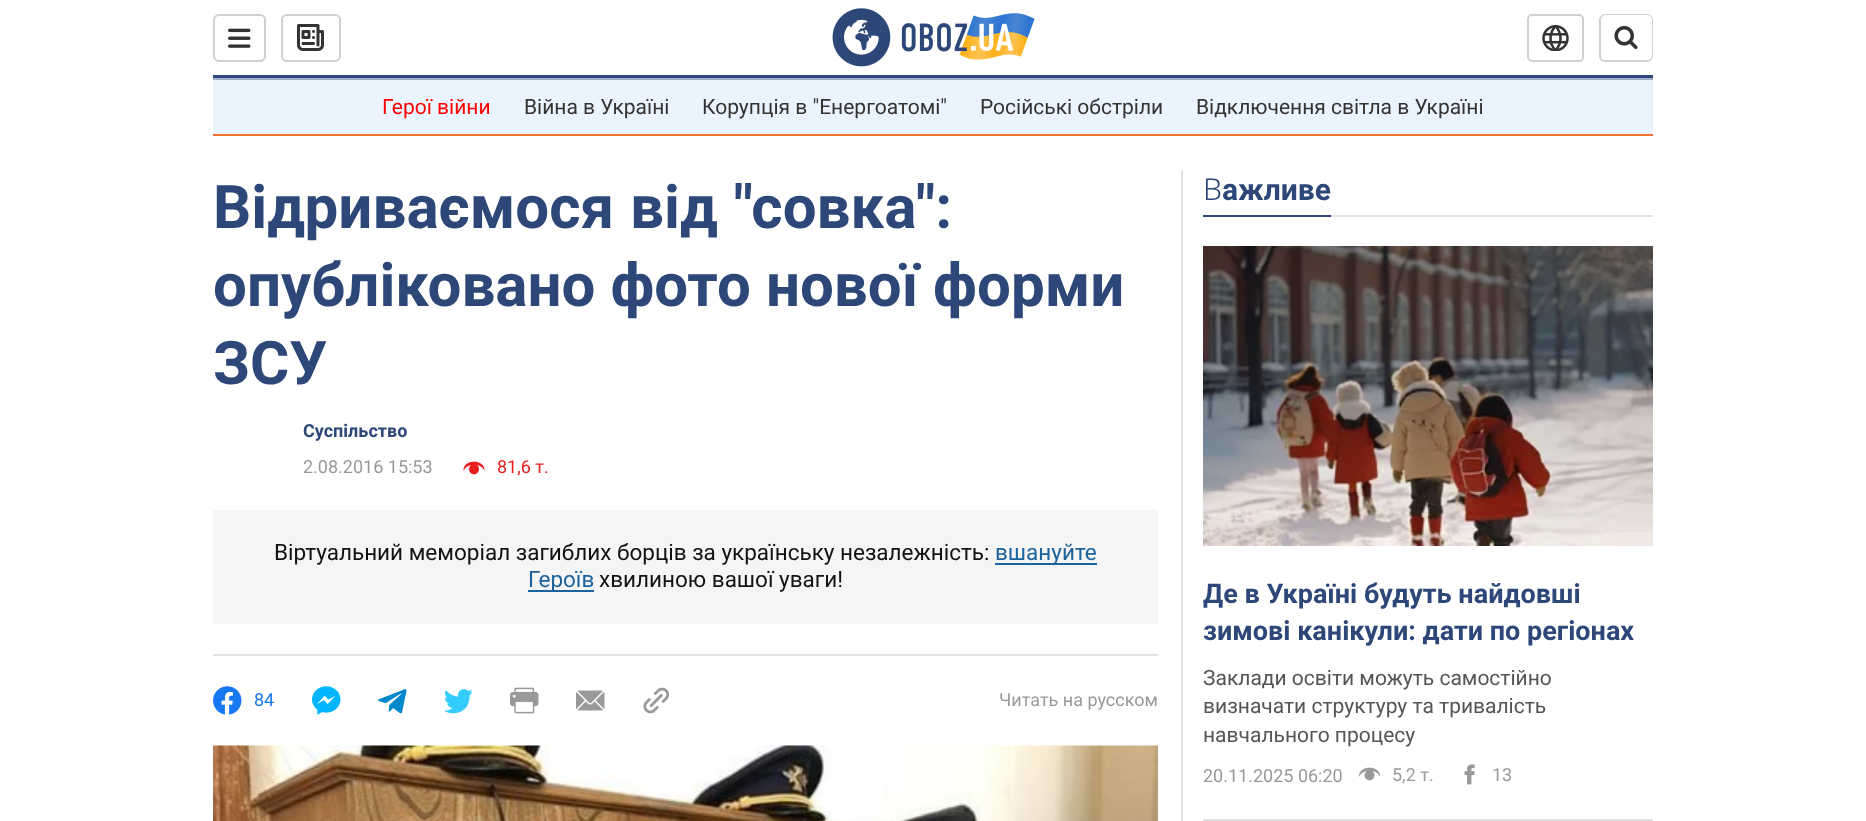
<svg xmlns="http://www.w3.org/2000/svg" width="1866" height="821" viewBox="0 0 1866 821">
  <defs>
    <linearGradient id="g1" gradientUnits="userSpaceOnUse" x1="1428" y1="246" x2="1428" y2="554"><stop offset="0" stop-color="rgb(0,0,0)" stop-opacity="0.3"/><stop offset="1" stop-color="rgb(0,0,0)" stop-opacity="0"/></linearGradient>
  </defs>
  <rect width="100%" height="100%" fill="rgb(255,255,255)"/>
  <rect x="213" y="75" width="1440" height="3" fill="rgb(45,72,120)"/>
  <rect x="214" y="15" width="51" height="46" rx="5" fill="none" stroke="rgb(208,208,208)" stroke-width="2"/>
  <image x="228" y="28" width="23" height="20" href="pic1.png"/>
  <rect x="282" y="15" width="58" height="46" rx="5" fill="none" stroke="rgb(208,208,208)" stroke-width="2"/>
  <image x="297" y="24" width="27" height="27" href="pic2.png"/>
  <image x="832" y="8" width="203" height="59" href="pic3.png"/>
  <rect x="1528" y="15" width="55" height="46" rx="4" fill="none" stroke="rgb(208,208,208)" stroke-width="2"/>
  <image x="1542" y="25" width="27" height="26" href="pic4.png"/>
  <rect x="1600" y="15" width="52" height="46" rx="5" fill="none" stroke="rgb(208,208,208)" stroke-width="2"/>
  <rect x="1601" y="15" width="51" height="45" rx="5" fill="rgb(255,255,255)"/>
  <image x="1614" y="25" width="24" height="25" href="pic5.png"/>
  <rect x="213" y="80" width="1440" height="54" fill="rgb(234,244,255)"/>
  <rect x="213" y="78" width="1440" height="2" fill="rgb(158,175,201)"/>
  <rect x="213" y="134" width="1440" height="2" fill="rgb(241,113,50)"/>
  <text x="382" y="114" font-family="Roboto" font-size="21" fill="rgb(255,0,0)">Герої війни</text>
  <g font-family="Roboto" font-size="21" fill="rgb(51,51,51)">
    <text x="524" y="114">Війна в Україні</text>
    <text x="702" y="114">Корупція в "Енергоатомі"</text>
    <text x="980" y="114">Російські обстріли</text>
    <text x="1196" y="114">Відключення світла в Україні</text>
  </g>
  <rect x="213" y="654" width="945" height="2" fill="rgb(226,226,226)"/>
  <g font-family="Roboto" font-size="60" font-weight="bold" fill="rgb(45,72,120)">
    <text>
      <tspan x="213" y="228" word-spacing="1">Відриваємося від "совка":</tspan>
      <tspan x="213" y="306">опубліковано фото нової форми</tspan>
      <tspan x="213" y="384">ЗСУ</tspan>
    </text>
  </g>
  <text x="303" y="437" font-family="Roboto" font-size="18" font-weight="bold" fill="rgb(45,72,120)">Суспільство</text>
  <text x="303" y="473" font-family="Roboto" font-size="18" fill="rgb(153,153,153)">2.08.2016 15:53</text>
  <image x="463" y="461" width="22" height="14" href="pic6.png"/>
  <text x="497" y="473" font-family="Roboto" font-size="18" fill="rgb(234,29,29)">81,6 т.</text>
  <rect x="213" y="510" width="945" height="114" fill="rgb(245,245,245)"/>
  <text x="274" y="560" font-family="Roboto" font-size="22.5" fill="rgb(18,18,18)">Віртуальний меморіал загиблих борців за українську незалежність:</text>
  <rect x="995" y="563" width="102" height="2" fill="rgb(28,98,156)"/>
  <text x="995" y="560" font-family="Roboto" font-size="22.5" fill="rgb(28,98,156)">вшануйте</text>
  <rect x="528" y="590" width="66" height="2" fill="rgb(28,98,156)"/>
  <text x="528" y="587" font-family="Roboto" font-size="22.5" fill="rgb(28,98,156)">Героїв</text>
  <text x="599" y="587" font-family="Roboto" font-size="22.5" fill="rgb(18,18,18)">хвилиною вашої уваги!</text>
  <image x="213" y="686" width="29" height="29" href="pic7.png"/>
  <text x="254" y="706" font-family="Roboto" font-size="18" fill="rgb(23,120,242)">84</text>
  <image x="312" y="686" width="29" height="29" href="pic8.png"/>
  <image x="378" y="689" width="29" height="25" href="pic9.png"/>
  <image x="444" y="689" width="29" height="25" href="pic10.png"/>
  <image x="510" y="687" width="29" height="27" href="pic11.png"/>
  <image x="576" y="690" width="29" height="21" href="pic12.png"/>
  <image x="643" y="687" width="27" height="27" href="pic13.png"/>
  <text x="999" y="706" font-family="Roboto" font-size="18" fill="rgb(153,153,153)">Читать на русском</text>
  <image x="213" y="745" width="945" height="76" href="pic14.png"/>
  <rect x="1181" y="170" width="2" height="651" fill="rgb(226,226,226)"/>
  <rect x="1331" y="215" width="322" height="2" fill="rgb(226,226,226)"/>
  <text x="1203" y="200" font-family="Noto Sans" font-size="30" font-weight="300" fill="rgb(45,72,120)">В</text>
  <text x="1222" y="200" font-family="Roboto" font-size="30" font-weight="bold" fill="rgb(45,72,120)">ажливе</text>
  <rect x="1203" y="215" width="128" height="2" fill="rgb(45,72,120)"/>
  <rect x="1203" y="819" width="450" height="2" fill="rgb(226,226,226)"/>
  <image x="1203" y="246" width="450" height="300" href="pic15.png"/>
  <rect x="1203" y="246" width="450" height="286" fill="url(#g1)"/>
  <g font-family="Roboto" font-size="27" font-weight="bold" fill="rgb(45,72,120)">
    <text>
      <tspan x="1203" y="603">Де в Україні будуть найдовші</tspan>
      <tspan x="1203" y="640">зимові канікули: дати по регіонах</tspan>
    </text>
  </g>
  <g font-family="Roboto" font-size="21" fill="rgb(85,85,85)">
    <text>
      <tspan x="1203" y="685">Заклади освіти можуть самостійно</tspan>
      <tspan x="1203" y="713">визначати структуру та тривалість</tspan>
      <tspan x="1203" y="742">навчального процесу</tspan>
    </text>
  </g>
  <text x="1203" y="782" font-family="Roboto" font-size="18" fill="rgb(153,153,153)">20.11.2025 06:20</text>
  <image x="1359" y="767" width="21" height="14" href="pic16.png"/>
  <text x="1392" y="781" font-family="Roboto" font-size="18" fill="rgb(153,153,153)">5,2 т.</text>
  <image x="1464" y="764" width="11" height="21" href="pic17.png"/>
  <text x="1492" y="781" font-family="Roboto" font-size="18" fill="rgb(153,153,153)">13</text>
</svg>
